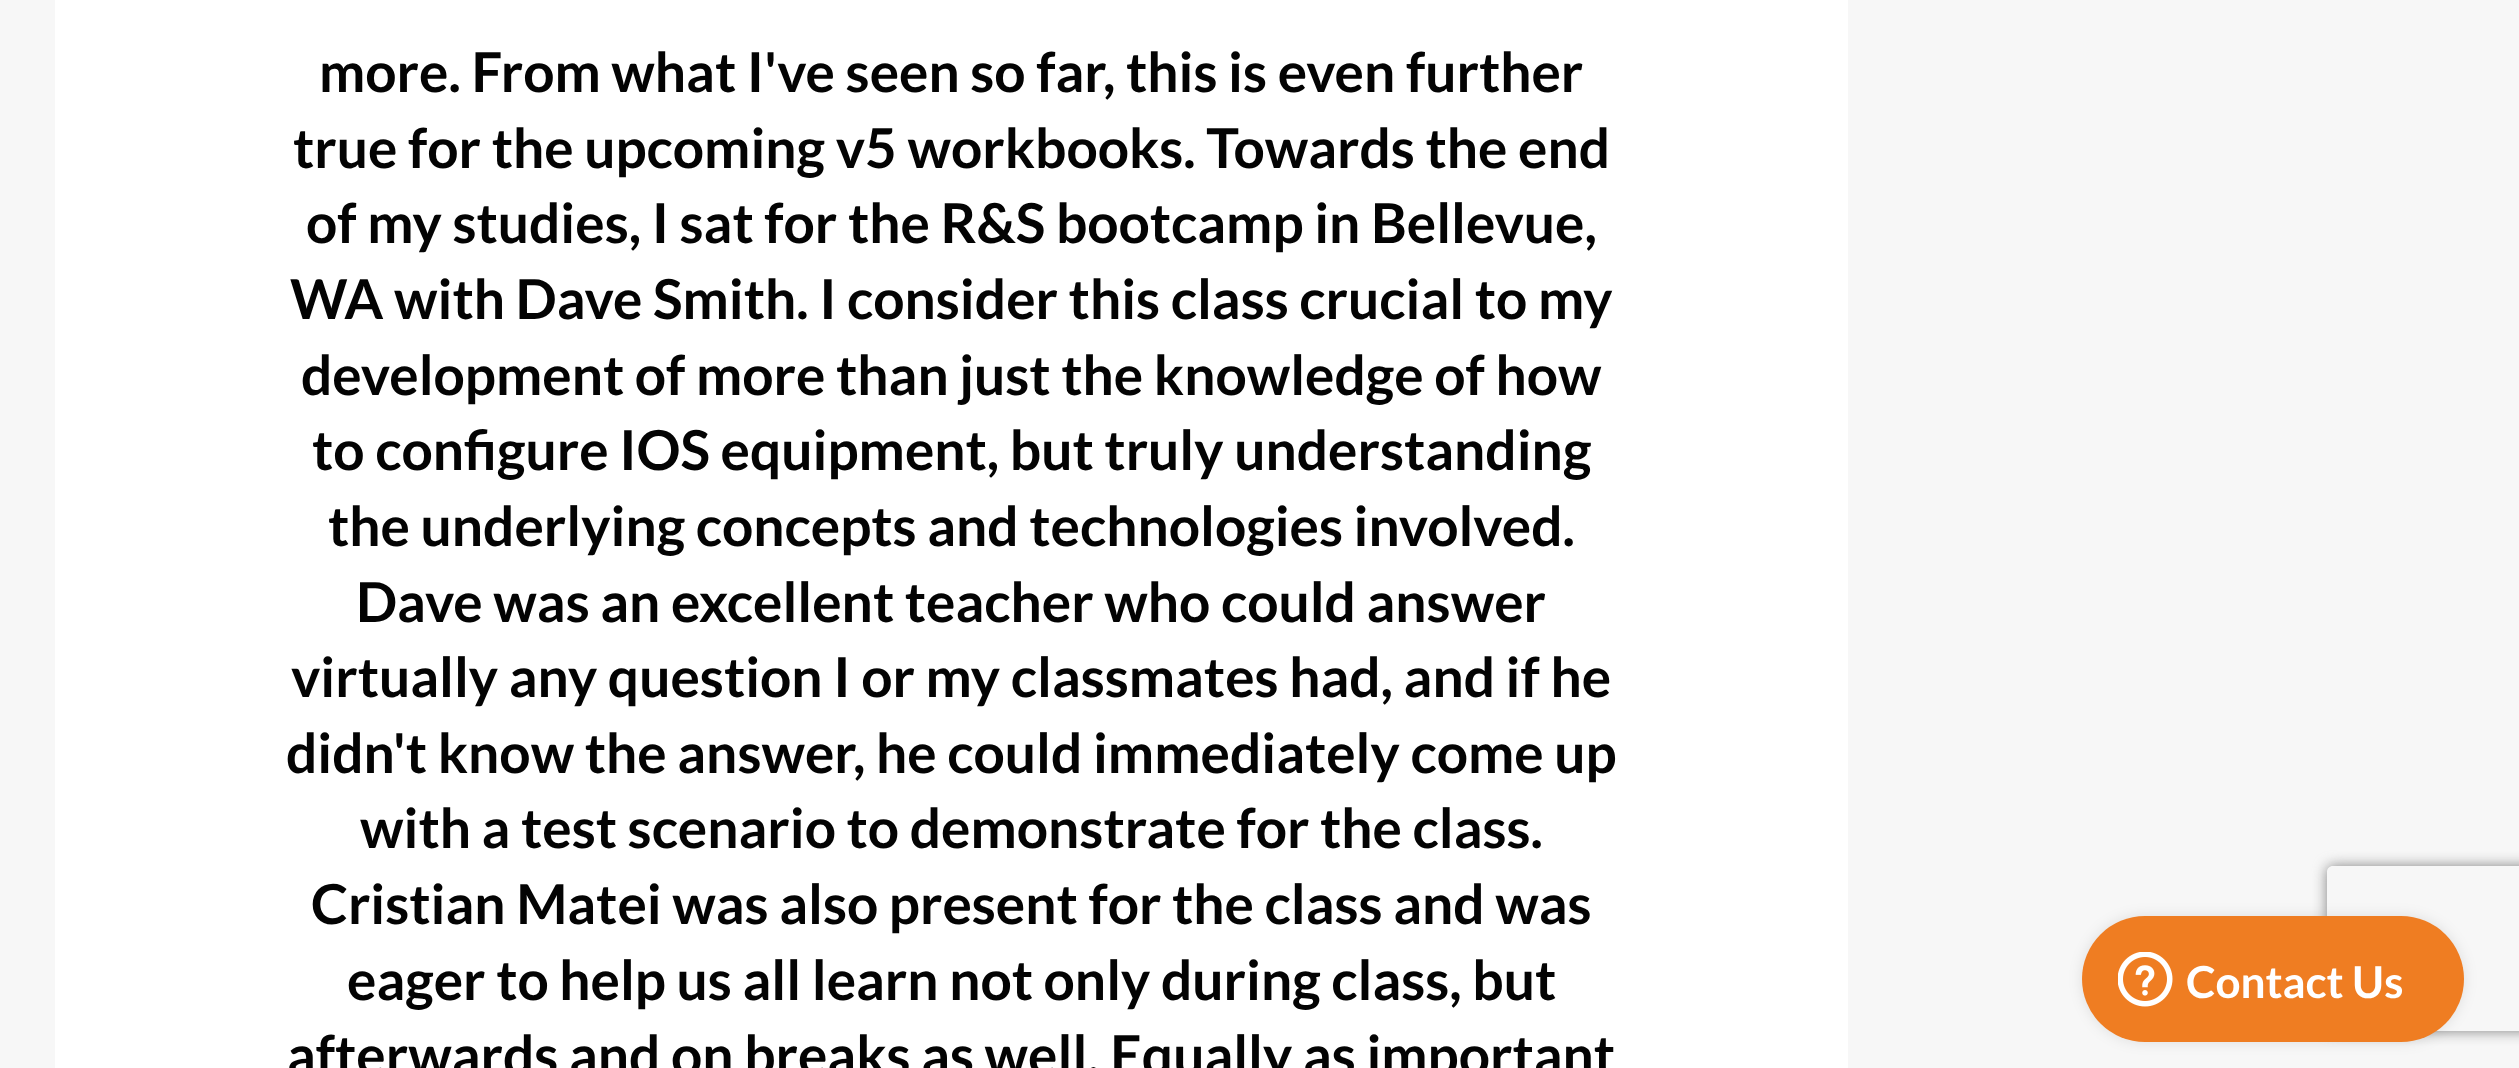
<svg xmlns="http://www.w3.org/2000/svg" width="2519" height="1068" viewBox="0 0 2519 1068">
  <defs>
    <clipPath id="clip1"><path d="M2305 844H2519V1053H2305ZM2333 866H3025C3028.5 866 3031 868.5 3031 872V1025C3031 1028.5 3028.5 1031 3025 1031H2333C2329.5 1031 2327 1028.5 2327 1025V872C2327 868.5 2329.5 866 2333 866Z" clip-rule="evenodd"/></clipPath>
  </defs>
  <rect width="100%" height="100%" fill="rgb(247,247,247)"/>
  <rect x="55" y="0" width="1793" height="1068" fill="rgb(255,255,255)"/>
  <g font-family="Lato" font-size="55" font-weight="bold" fill="rgb(3,3,3)">
    <text x="319" y="92">more. From what I've seen so far, this is even further</text>
    <text x="293" y="168">true for the upcoming v5 workbooks. Towards the end</text>
    <text x="306" y="243">of my studies, I sat for the R&amp;S bootcamp in Bellevue,</text>
    <text x="290" y="319">WA with Dave Smith. I consider this class crucial to my</text>
    <text x="301" y="395">development of more than just the knowledge of how</text>
    <text x="312" y="470">to configure IOS equipment, but truly understanding</text>
    <text x="328" y="546">the underlying concepts and technologies involved.</text>
    <text x="356" y="622">Dave was an excellent teacher who could answer</text>
    <text x="291" y="697">virtually any question I or my classmates had, and if he</text>
    <text x="286" y="773">didn't know the answer, he could immediately come up</text>
    <text x="360" y="848">with a test scenario to demonstrate for the class.</text>
    <text x="311" y="924">Cristian Matei was also present for the class and was</text>
    <text x="347" y="1000">eager to help us all learn not only during class, but</text>
    <text x="287" y="1075">afterwards and on breaks as well. Equally as important</text>
  </g>
  <rect x="2082" y="916" width="382" height="126" rx="63" fill="rgba(0,0,0,0.1)" filter="blur(7px)"/>
  <g clip-path="url(#clip1)">
    <rect x="2327" y="866" width="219" height="165" rx="6" fill="rgb(128,128,128)" filter="blur(7px)"/>
  </g>
  <rect x="2082" y="916" width="382" height="126" rx="63" fill="rgb(239,125,34)"/>
  <image x="2118" y="952" width="55" height="55" href="pic1.png"/>
  <text x="2186" y="998" font-family="Lato" font-size="44" font-weight="bold" fill="rgb(255,255,255)">Contact Us</text>
</svg>
